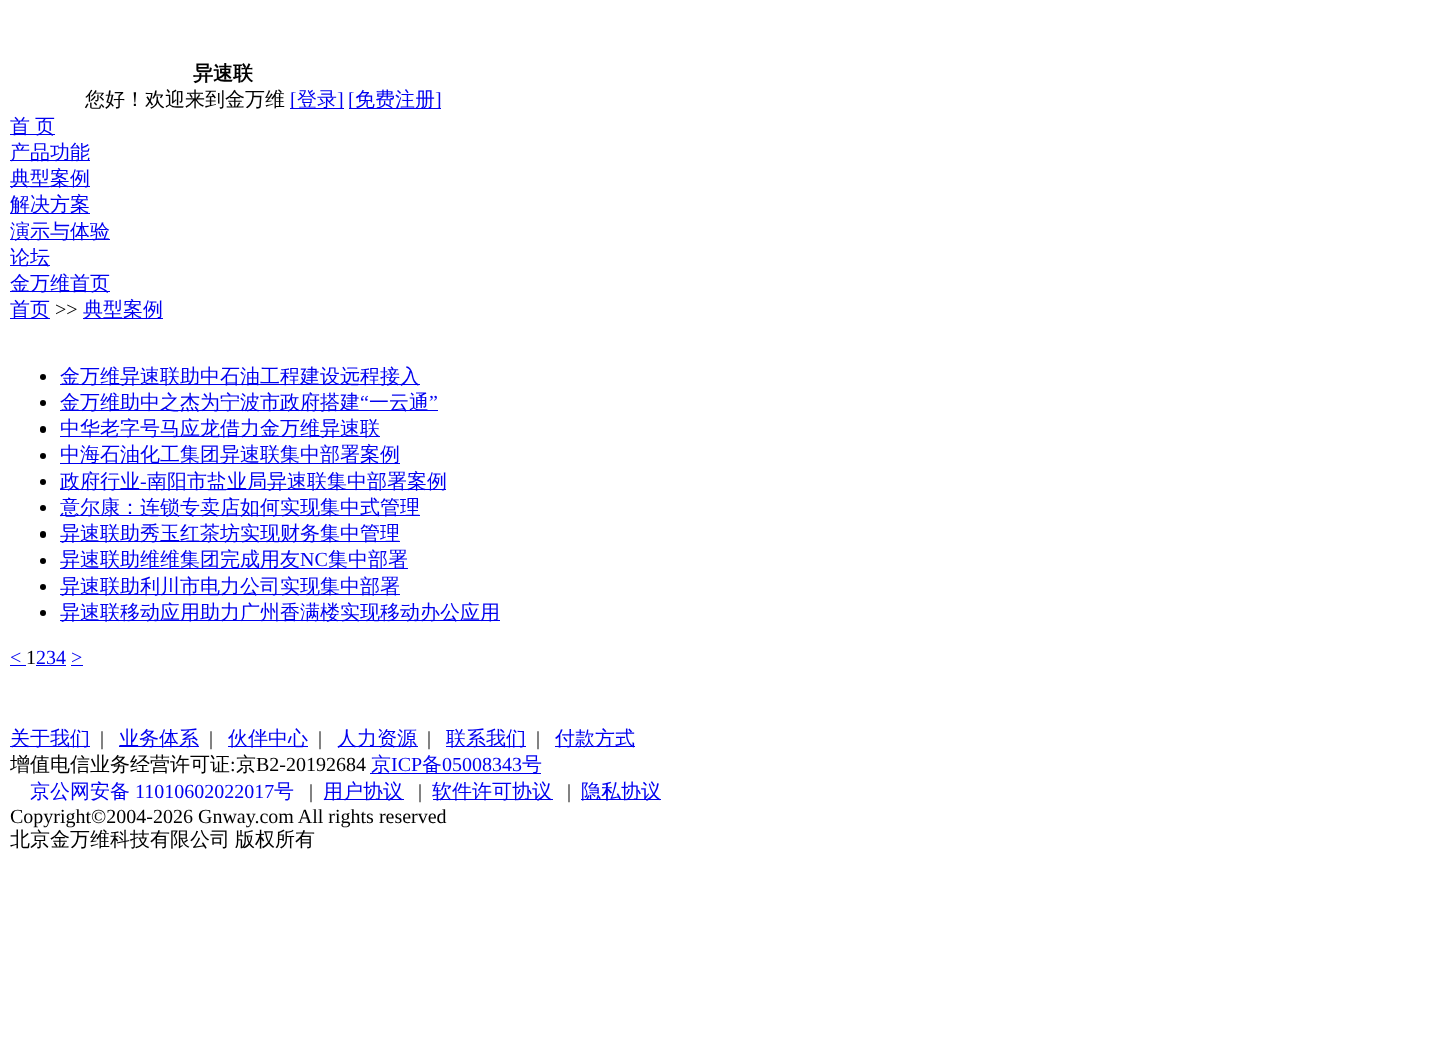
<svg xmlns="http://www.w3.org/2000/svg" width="1441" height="1057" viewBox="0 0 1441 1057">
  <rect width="100%" height="100%" fill="rgb(255,255,255)"/>
  <text x="193" y="80" font-family="WenQuanYi Zen Hei" font-size="20" font-weight="bold" fill="rgb(0,0,0)">异速联</text>
  <text x="85" y="106" font-family="WenQuanYi Zen Hei" font-size="20" font-weight="500" fill="rgb(0,0,0)">您好！欢迎来到金万维</text>
  <rect x="290" y="108" width="54" height="1" fill="rgb(0,0,238)"/>
  <text x="290" y="106" font-family="Liberation Serif" font-size="20" fill="rgb(0,0,238)">[</text>
  <text x="297" y="106" font-family="WenQuanYi Zen Hei" font-size="20" font-weight="500" fill="rgb(0,0,238)">登录</text>
  <text x="337" y="106" font-family="Liberation Serif" font-size="20" fill="rgb(0,0,238)">]</text>
  <rect x="349" y="108" width="92" height="1" fill="rgb(0,0,238)"/>
  <text x="348" y="106" font-family="Liberation Serif" font-size="20" fill="rgb(0,0,238)">[</text>
  <text x="355" y="106" font-family="WenQuanYi Zen Hei" font-size="20" font-weight="500" fill="rgb(0,0,238)">免费注册</text>
  <text x="435" y="106" font-family="Liberation Serif" font-size="20" fill="rgb(0,0,238)">]</text>
  <rect x="10" y="134" width="45" height="1" fill="rgb(0,0,238)"/>
  <g font-family="WenQuanYi Zen Hei" font-size="20" font-weight="500" fill="rgb(0,0,238)">
    <text x="10" y="133">首</text>
    <text x="35" y="133">页</text>
  </g>
  <rect x="10" y="160" width="80" height="1" fill="rgb(0,0,238)"/>
  <text x="10" y="159" font-family="WenQuanYi Zen Hei" font-size="20" font-weight="500" fill="rgb(0,0,238)">产品功能</text>
  <rect x="10" y="186" width="80" height="1" fill="rgb(0,0,238)"/>
  <text x="10" y="185" font-family="WenQuanYi Zen Hei" font-size="20" font-weight="500" fill="rgb(0,0,238)">典型案例</text>
  <rect x="10" y="213" width="80" height="1" fill="rgb(0,0,238)"/>
  <text x="10" y="211" font-family="WenQuanYi Zen Hei" font-size="20" font-weight="500" fill="rgb(0,0,238)">解决方案</text>
  <rect x="10" y="239" width="100" height="1" fill="rgb(0,0,238)"/>
  <text x="10" y="238" font-family="WenQuanYi Zen Hei" font-size="20" font-weight="500" fill="rgb(0,0,238)">演示与体验</text>
  <rect x="10" y="265" width="40" height="1" fill="rgb(0,0,238)"/>
  <text x="10" y="264" font-family="WenQuanYi Zen Hei" font-size="20" font-weight="500" fill="rgb(0,0,238)">论坛</text>
  <rect x="10" y="291" width="100" height="1" fill="rgb(0,0,238)"/>
  <text x="10" y="290" font-family="WenQuanYi Zen Hei" font-size="20" font-weight="500" fill="rgb(0,0,238)">金万维首页</text>
  <rect x="10" y="318" width="40" height="1" fill="rgb(0,0,238)"/>
  <text x="10" y="316" font-family="WenQuanYi Zen Hei" font-size="20" font-weight="500" fill="rgb(0,0,238)">首页</text>
  <text x="55" y="316" font-family="Liberation Serif" font-size="20" fill="rgb(0,0,0)">&gt;&gt;</text>
  <rect x="83" y="318" width="80" height="1" fill="rgb(0,0,238)"/>
  <text x="83" y="316" font-family="WenQuanYi Zen Hei" font-size="20" font-weight="500" fill="rgb(0,0,238)">典型案例</text>
  <circle cx="43" cy="377" r="3" fill="rgb(0,0,0)"/>
  <rect x="60" y="384" width="360" height="1" fill="rgb(0,0,238)"/>
  <text x="60" y="383" font-family="WenQuanYi Zen Hei" font-size="20" font-weight="500" fill="rgb(0,0,238)">金万维异速联助中石油工程建设远程接入</text>
  <rect x="60" y="410" width="378" height="1" fill="rgb(0,0,238)"/>
  <text x="60" y="409" font-family="WenQuanYi Zen Hei" font-size="20" font-weight="500" fill="rgb(0,0,238)">金万维助中之杰为宁波市政府搭建</text>
  <text x="360" y="409" font-family="Liberation Serif" font-size="20" fill="rgb(0,0,238)">“</text>
  <text x="369" y="409" font-family="WenQuanYi Zen Hei" font-size="20" font-weight="500" fill="rgb(0,0,238)">一云通</text>
  <text x="429" y="409" font-family="Liberation Serif" font-size="20" fill="rgb(0,0,238)">”</text>
  <circle cx="43" cy="403" r="3" fill="rgb(0,0,0)"/>
  <rect x="40" y="426" width="6" height="7" rx="3" fill="rgb(0,0,0)"/>
  <rect x="60" y="436" width="320" height="1" fill="rgb(0,0,238)"/>
  <text x="60" y="435" font-family="WenQuanYi Zen Hei" font-size="20" font-weight="500" fill="rgb(0,0,238)">中华老字号马应龙借力金万维异速联</text>
  <circle cx="43" cy="456" r="3" fill="rgb(0,0,0)"/>
  <rect x="60" y="463" width="340" height="1" fill="rgb(0,0,238)"/>
  <text x="60" y="461" font-family="WenQuanYi Zen Hei" font-size="20" font-weight="500" fill="rgb(0,0,238)">中海石油化工集团异速联集中部署案例</text>
  <circle cx="43" cy="482" r="3" fill="rgb(0,0,0)"/>
  <rect x="60" y="489" width="386" height="1" fill="rgb(0,0,238)"/>
  <text x="60" y="488" font-family="WenQuanYi Zen Hei" font-size="20" font-weight="500" fill="rgb(0,0,238)">政府行业</text>
  <text x="140" y="488" font-family="Liberation Serif" font-size="20" fill="rgb(0,0,238)">-</text>
  <text x="147" y="488" font-family="WenQuanYi Zen Hei" font-size="20" font-weight="500" fill="rgb(0,0,238)">南阳市盐业局异速联集中部署案例</text>
  <circle cx="43" cy="508" r="3" fill="rgb(0,0,0)"/>
  <rect x="60" y="515" width="360" height="1" fill="rgb(0,0,238)"/>
  <text x="60" y="514" font-family="WenQuanYi Zen Hei" font-size="20" font-weight="500" fill="rgb(0,0,238)">意尔康：连锁专卖店如何实现集中式管理</text>
  <rect x="40" y="531" width="6" height="7" rx="3" fill="rgb(0,0,0)"/>
  <rect x="60" y="541" width="340" height="1" fill="rgb(0,0,238)"/>
  <text x="60" y="540" font-family="WenQuanYi Zen Hei" font-size="20" font-weight="500" fill="rgb(0,0,238)">异速联助秀玉红茶坊实现财务集中管理</text>
  <circle cx="43" cy="561" r="3" fill="rgb(0,0,0)"/>
  <rect x="60" y="568" width="348" height="1" fill="rgb(0,0,238)"/>
  <text x="60" y="566" font-family="WenQuanYi Zen Hei" font-size="20" font-weight="500" fill="rgb(0,0,238)">异速联助维维集团完成用友</text>
  <text x="300" y="566" font-family="Liberation Serif" font-size="20" fill="rgb(0,0,238)">NC</text>
  <text x="328" y="566" font-family="WenQuanYi Zen Hei" font-size="20" font-weight="500" fill="rgb(0,0,238)">集中部署</text>
  <circle cx="43" cy="587" r="3" fill="rgb(0,0,0)"/>
  <rect x="60" y="594" width="340" height="1" fill="rgb(0,0,238)"/>
  <text x="60" y="593" font-family="WenQuanYi Zen Hei" font-size="20" font-weight="500" fill="rgb(0,0,238)">异速联助利川市电力公司实现集中部署</text>
  <circle cx="43" cy="613" r="3" fill="rgb(0,0,0)"/>
  <rect x="60" y="620" width="440" height="1" fill="rgb(0,0,238)"/>
  <text x="60" y="619" font-family="WenQuanYi Zen Hei" font-size="20" font-weight="500" fill="rgb(0,0,238)">异速联移动应用助力广州香满楼实现移动办公应用</text>
  <text x="10" y="664" font-family="Liberation Serif" font-size="20" fill="rgb(0,0,238)">&lt;</text>
  <rect x="10" y="665" width="16" height="1" fill="rgb(0,0,238)"/>
  <text x="26" y="664" font-family="Liberation Serif" font-size="20" fill="rgb(0,0,0)">1</text>
  <text x="36" y="664" font-family="Liberation Serif" font-size="20" fill="rgb(0,0,238)">234 &gt;</text>
  <rect x="36" y="665" width="30" height="1" fill="rgb(0,0,238)"/>
  <rect x="71" y="665" width="12" height="1" fill="rgb(0,0,238)"/>
  <rect x="10" y="746" width="80" height="1" fill="rgb(0,0,238)"/>
  <text x="10" y="745" font-family="WenQuanYi Zen Hei" font-size="20" font-weight="500" fill="rgb(0,0,238)">关于我们</text>
  <text x="100" y="745" font-family="Liberation Serif" font-size="20" fill="rgb(0,0,0)">|</text>
  <rect x="119" y="746" width="80" height="1" fill="rgb(0,0,238)"/>
  <text x="119" y="745" font-family="WenQuanYi Zen Hei" font-size="20" font-weight="500" fill="rgb(0,0,238)">业务体系</text>
  <text x="209" y="745" font-family="Liberation Serif" font-size="20" fill="rgb(0,0,0)">|</text>
  <rect x="228" y="746" width="80" height="1" fill="rgb(0,0,238)"/>
  <text x="228" y="745" font-family="WenQuanYi Zen Hei" font-size="20" font-weight="500" fill="rgb(0,0,238)">伙伴中心</text>
  <text x="318" y="745" font-family="Liberation Serif" font-size="20" fill="rgb(0,0,0)">|</text>
  <rect x="338" y="746" width="80" height="1" fill="rgb(0,0,238)"/>
  <text x="337" y="745" font-family="WenQuanYi Zen Hei" font-size="20" font-weight="500" fill="rgb(0,0,238)">人力资源</text>
  <text x="427" y="745" font-family="Liberation Serif" font-size="20" fill="rgb(0,0,0)">|</text>
  <rect x="446" y="746" width="80" height="1" fill="rgb(0,0,238)"/>
  <text x="446" y="745" font-family="WenQuanYi Zen Hei" font-size="20" font-weight="500" fill="rgb(0,0,238)">联系我们</text>
  <text x="536" y="745" font-family="Liberation Serif" font-size="20" fill="rgb(0,0,0)">|</text>
  <rect x="555" y="746" width="80" height="1" fill="rgb(0,0,238)"/>
  <text x="555" y="745" font-family="WenQuanYi Zen Hei" font-size="20" font-weight="500" fill="rgb(0,0,238)">付款方式</text>
  <text x="10" y="771" font-family="WenQuanYi Zen Hei" font-size="20" font-weight="500" fill="rgb(0,0,0)">增值电信业务经营许可证</text>
  <text x="230" y="771" font-family="Liberation Serif" font-size="20" fill="rgb(0,0,0)">:</text>
  <text x="236" y="771" font-family="WenQuanYi Zen Hei" font-size="20" font-weight="500" fill="rgb(0,0,0)">京</text>
  <text x="256" y="771" font-family="Liberation Serif" font-size="20" fill="rgb(0,0,0)">B2-20192684</text>
  <rect x="370" y="773" width="171" height="1" fill="rgb(0,0,238)"/>
  <text x="371" y="771" font-family="WenQuanYi Zen Hei" font-size="20" font-weight="500" fill="rgb(0,0,238)">京</text>
  <text x="391" y="771" font-family="Liberation Serif" font-size="20" fill="rgb(0,0,238)">ICP</text>
  <text x="422" y="771" font-family="WenQuanYi Zen Hei" font-size="20" font-weight="500" fill="rgb(0,0,238)">备</text>
  <text x="442" y="771" font-family="Liberation Serif" font-size="20" fill="rgb(0,0,238)">05008343</text>
  <g font-family="WenQuanYi Zen Hei" font-size="20" font-weight="500" fill="rgb(0,0,238)">
    <text x="522" y="771">号</text>
    <text x="30" y="798">京公网安备</text>
  </g>
  <text x="135" y="798" font-family="Liberation Serif" font-size="20" fill="rgb(0,0,238)">11010602022017</text>
  <text x="274" y="798" font-family="WenQuanYi Zen Hei" font-size="20" font-weight="500" fill="rgb(0,0,238)">号</text>
  <text x="309" y="798" font-family="Liberation Serif" font-size="20" fill="rgb(0,0,0)">|</text>
  <rect x="324" y="799" width="80" height="1" fill="rgb(0,0,238)"/>
  <text x="323" y="798" font-family="WenQuanYi Zen Hei" font-size="20" font-weight="500" fill="rgb(0,0,238)">用户协议</text>
  <text x="418" y="798" font-family="Liberation Serif" font-size="20" fill="rgb(0,0,0)">|</text>
  <rect x="433" y="799" width="120" height="1" fill="rgb(0,0,238)"/>
  <text x="432" y="798" font-family="WenQuanYi Zen Hei" font-size="20" font-weight="500" fill="rgb(0,0,238)">软件许可协议</text>
  <text x="567" y="798" font-family="Liberation Serif" font-size="20" fill="rgb(0,0,0)">|</text>
  <rect x="581" y="799" width="80" height="1" fill="rgb(0,0,238)"/>
  <text x="581" y="798" font-family="WenQuanYi Zen Hei" font-size="20" font-weight="500" fill="rgb(0,0,238)">隐私协议</text>
  <text x="10" y="823" font-family="Liberation Serif" font-size="20" fill="rgb(0,0,0)">Copyright©2004-2026 Gnway.com All rights reserved</text>
  <text x="10" y="846" word-spacing="-1" font-family="WenQuanYi Zen Hei" font-size="20" font-weight="500" fill="rgb(0,0,0)">北京金万维科技有限公司 版权所有</text>
</svg>
